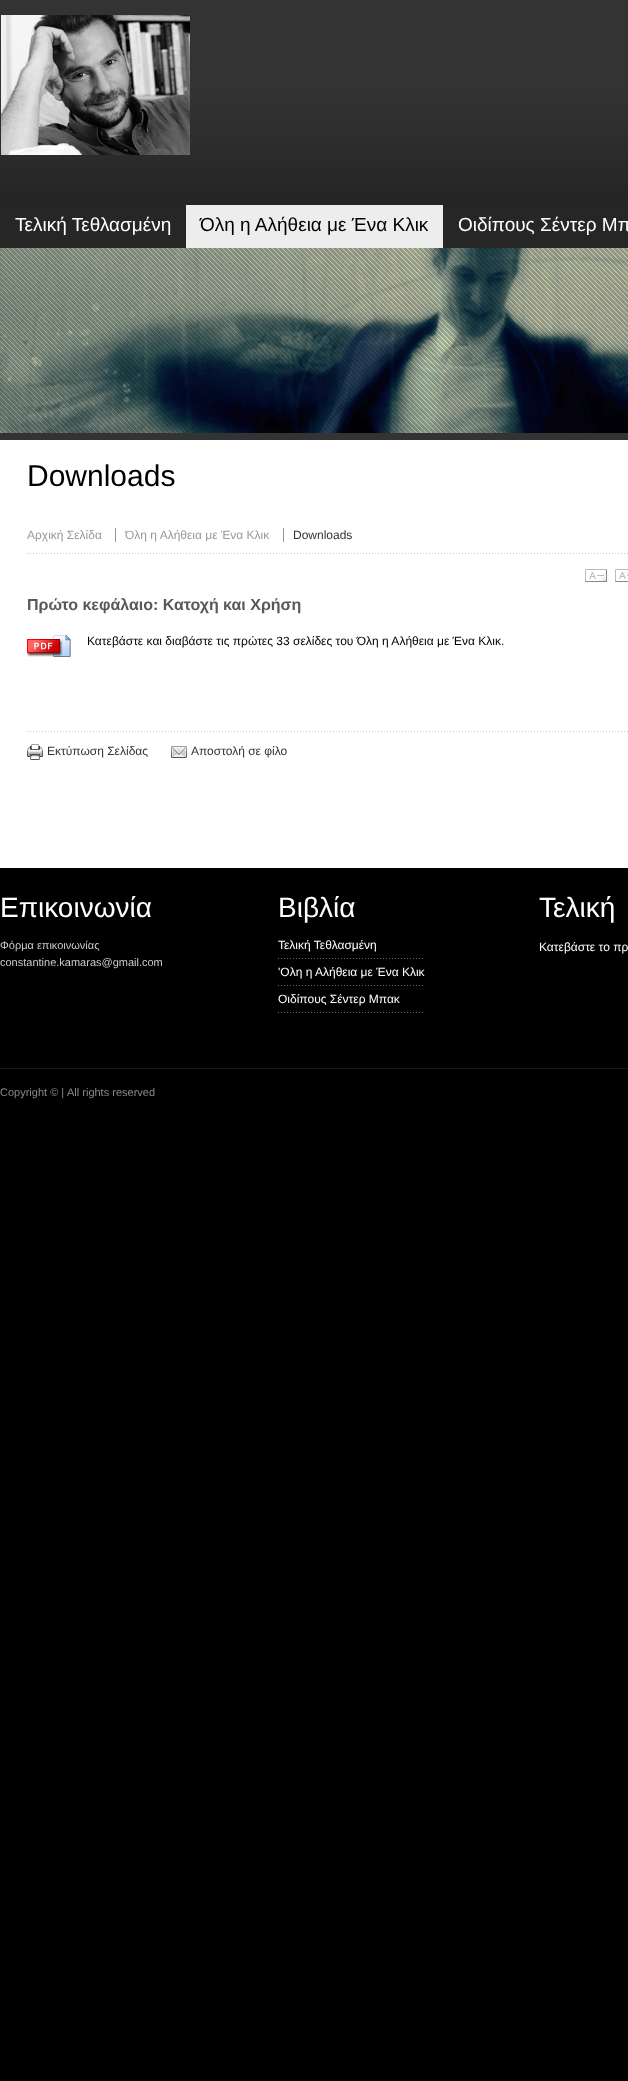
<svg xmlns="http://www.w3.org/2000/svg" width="628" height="2081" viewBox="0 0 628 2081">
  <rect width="100%" height="100%" fill="rgb(0,0,0)"/>
  <image x="0" y="0" width="628" height="205" href="pic1.png"/>
  <image x="1" y="15" width="189" height="140" href="pic2.png"/>
  <rect x="0" y="205" width="628" height="42" fill="rgb(38,38,38)"/>
  <rect x="0" y="247" width="628" height="1" fill="rgb(40,40,40)"/>
  <text x="15" y="231" font-family="Liberation Sans" font-size="19" fill="rgb(255,255,255)">Τελική Τεθλασμένη</text>
  <rect x="186" y="205" width="257" height="43" fill="rgb(237,237,237)"/>
  <text x="200" y="231" font-family="Liberation Sans" font-size="19" fill="rgb(0,0,0)">Όλη η Αλήθεια με Ένα Κλικ</text>
  <text x="458" y="231" font-family="Liberation Sans" font-size="19" fill="rgb(255,255,255)">Οιδίπους Σέντερ Μπ</text>
  <rect x="0" y="440" width="628" height="428" fill="rgb(255,255,255)"/>
  <rect x="0" y="433" width="628" height="7" fill="rgb(51,51,51)"/>
  <image x="0" y="248" width="628" height="185" href="pic3.png"/>
  <image x="27" y="553" width="601" height="1" href="pic4.png"/>
  <text x="27" y="486" font-family="Liberation Sans" font-size="30" fill="rgb(0,0,0)">Downloads</text>
  <g font-family="Liberation Sans" font-size="12" fill="rgb(153,153,153)">
    <text x="27" y="539">Αρχική Σελίδα</text>
    <text x="125" y="539">Όλη η Αλήθεια με Ένα Κλικ</text>
  </g>
  <rect x="115" y="528" width="1" height="14" fill="rgb(153,153,153)"/>
  <text x="293" y="539" font-family="Liberation Sans" font-size="12" fill="rgb(51,51,51)">Downloads</text>
  <rect x="283" y="528" width="1" height="14" fill="rgb(153,153,153)"/>
  <image x="585" y="569" width="22" height="13" href="pic5.png"/>
  <image x="615" y="569" width="13" height="13" href="pic6.png"/>
  <text x="27" y="610" font-family="Liberation Sans" font-size="16" font-weight="bold" fill="rgb(88,88,88)">Πρώτο κεφάλαιο: Κατοχή και Χρήση</text>
  <image x="27" y="635" width="44" height="22" href="pic7.png"/>
  <text x="87" y="645" font-family="Liberation Sans" font-size="12" fill="rgb(0,0,0)">Κατεβάστε και διαβάστε τις πρώτες 33 σελίδες του Όλη η Αλήθεια με Ένα Κλικ.</text>
  <image x="27" y="731" width="601" height="1" href="pic4.png"/>
  <image x="27" y="744" width="16" height="16" href="pic8.png"/>
  <text x="47" y="755" font-family="Liberation Sans" font-size="12" fill="rgb(51,51,51)">Εκτύπωση Σελίδας</text>
  <image x="171" y="746" width="16" height="12" href="pic9.png"/>
  <text x="191" y="755" font-family="Liberation Sans" font-size="12" fill="rgb(51,51,51)">Αποστολή σε φίλο</text>
  <text x="0" y="917" font-family="Liberation Sans" font-size="28" fill="rgb(255,255,255)">Eπικοινωνία</text>
  <g font-family="Liberation Sans" font-size="11" fill="rgb(204,204,204)">
    <text>
      <tspan x="0" y="949">Φόρμα επικοινωνίας</tspan>
      <tspan x="0" y="966">constantine.kamaras@gmail.com</tspan>
    </text>
  </g>
  <text x="278" y="917" font-family="Liberation Sans" font-size="28" fill="rgb(255,255,255)">Βιβλία</text>
  <image x="278" y="958" width="145" height="1" href="pic10.png"/>
  <text x="278" y="949" font-family="Liberation Sans" font-size="12" fill="rgb(255,255,255)">Τελική Τεθλασμένη</text>
  <image x="278" y="985" width="145" height="1" href="pic10.png"/>
  <text x="278" y="976" font-family="Liberation Sans" font-size="12" fill="rgb(255,255,255)">'Ολη η Αλήθεια με Ένα Κλικ</text>
  <image x="278" y="1012" width="145" height="1" href="pic10.png"/>
  <text x="278" y="1003" font-family="Liberation Sans" font-size="12" fill="rgb(255,255,255)">Οιδίπους Σέντερ Μπακ</text>
  <text x="539" y="917" font-family="Liberation Sans" font-size="28" fill="rgb(255,255,255)">Τελική</text>
  <text x="539" y="951" font-family="Liberation Sans" font-size="12" fill="rgb(255,255,255)">Κατεβάστε το πρ</text>
  <rect x="0" y="1068" width="628" height="1" fill="rgb(24,24,24)"/>
  <g font-family="Liberation Sans" font-size="11" fill="rgb(138,138,138)">
    <text x="0" y="1096">Copyright © |</text>
    <text x="67" y="1096">All rights reserved</text>
  </g>
</svg>
